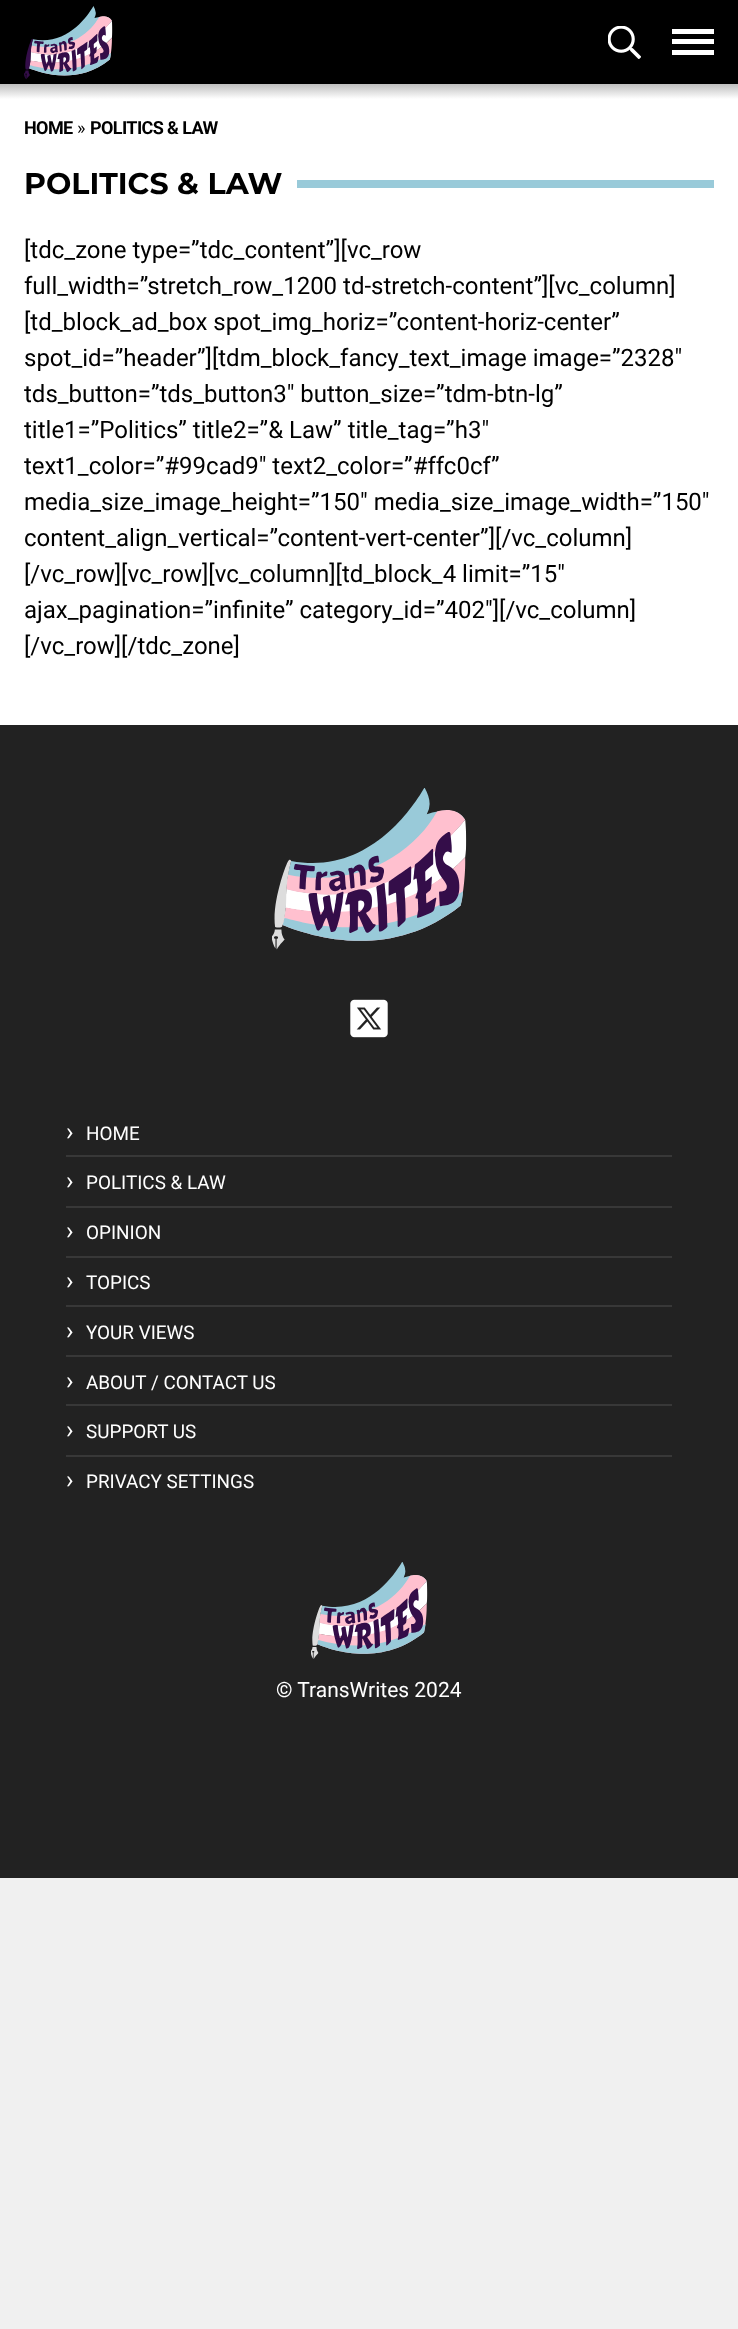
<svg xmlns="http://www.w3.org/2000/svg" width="738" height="2329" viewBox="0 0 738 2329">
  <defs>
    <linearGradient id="g1" gradientUnits="userSpaceOnUse" x1="369" y1="84" x2="369" y2="99"><stop offset="0" stop-color="rgb(191,191,191)"/><stop offset="1" stop-color="rgb(255,255,255)"/></linearGradient>
  </defs>
  <rect width="100%" height="100%" fill="rgb(240,240,240)"/>
  <rect x="0" y="0" width="738" height="84" fill="rgb(0,0,0)"/>
  <image x="24" y="6" width="89" height="74" href="pic1.png"/>
  <image x="608" y="26" width="33" height="33" href="pic2.png"/>
  <rect x="672" y="29" width="42" height="5" fill="rgb(255,255,255)"/>
  <rect x="672" y="39" width="42" height="5" fill="rgb(255,255,255)"/>
  <rect x="672" y="50" width="42" height="5" fill="rgb(255,255,255)"/>
  <rect x="0" y="84" width="738" height="15" fill="url(#g1)"/>
  <rect x="0" y="99" width="738" height="626" fill="rgb(255,255,255)"/>
  <text x="24" y="134" font-family="Roboto" font-size="18" font-weight="bold" letter-spacing="-0.6" fill="rgb(0,0,0)">HOME</text>
  <text x="77" y="134" font-family="Roboto" font-size="18" fill="rgb(0,0,0)">»</text>
  <text x="90" y="134" font-family="Roboto" font-size="18" font-weight="bold" letter-spacing="-0.6" fill="rgb(0,0,0)">POLITICS &amp; LAW</text>
  <text x="24" y="194" font-family="Montserrat" font-size="30" font-weight="bold" fill="rgb(0,0,0)">POLITICS &amp; LAW</text>
  <rect x="297" y="180" width="417" height="8" fill="rgb(153,202,217)"/>
  <g font-family="Roboto" font-size="24" fill="rgb(0,0,0)">
    <text>
      <tspan x="24" y="258">[tdc_zone type=”tdc_content”][vc_row</tspan>
      <tspan x="24" y="294">full_width=”stretch_row_1200 td-stretch-content”][vc_column]</tspan>
      <tspan x="24" y="330">[td_block_ad_box spot_img_horiz=”content-horiz-center”</tspan>
      <tspan x="24" y="366">spot_id=”header”][tdm_block_fancy_text_image image=”2328″</tspan>
      <tspan x="24" y="402">tds_button=”tds_button3″ button_size=”tdm-btn-lg”</tspan>
      <tspan x="24" y="438">title1=”Politics” title2=”&amp; Law” title_tag=”h3″</tspan>
      <tspan x="24" y="474">text1_color=”#99cad9″ text2_color=”#ffc0cf”</tspan>
      <tspan x="24" y="510">media_size_image_height=”150″ media_size_image_width=”150″</tspan>
      <tspan x="24" y="546">content_align_vertical=”content-vert-center”][/vc_column]</tspan>
      <tspan x="24" y="582">[/vc_row][vc_row][vc_column][td_block_4 limit=”15″</tspan>
      <tspan x="24" y="618">ajax_pagination=”infinite” category_id=”402″][/vc_column]</tspan>
      <tspan x="24" y="654">[/vc_row][/tdc_zone]</tspan>
    </text>
  </g>
  <rect x="0" y="725" width="738" height="1153" fill="rgb(34,34,34)"/>
  <image x="272" y="788" width="195" height="162" href="pic3.png"/>
  <image x="350" y="999" width="38" height="39" href="pic4.png"/>
  <rect x="66" y="1155" width="606" height="2" fill="rgb(56,56,56)"/>
  <text x="66" y="1140" font-family="Roboto" font-size="25" fill="rgb(255,255,255)">›</text>
  <text x="86" y="1140" font-family="Roboto" font-size="18.9" fill="rgb(255,255,255)">HOME</text>
  <rect x="66" y="1206" width="606" height="2" fill="rgb(56,56,56)"/>
  <text x="66" y="1189" font-family="Roboto" font-size="25" fill="rgb(255,255,255)">›</text>
  <text x="86" y="1189" font-family="Roboto" font-size="18.9" fill="rgb(255,255,255)">POLITICS &amp; LAW</text>
  <rect x="66" y="1256" width="606" height="2" fill="rgb(56,56,56)"/>
  <text x="66" y="1239" font-family="Roboto" font-size="25" fill="rgb(255,255,255)">›</text>
  <text x="86" y="1239" font-family="Roboto" font-size="18.9" fill="rgb(255,255,255)">OPINION</text>
  <rect x="66" y="1305" width="606" height="2" fill="rgb(56,56,56)"/>
  <text x="66" y="1289" font-family="Roboto" font-size="25" fill="rgb(255,255,255)">›</text>
  <text x="86" y="1289" font-family="Roboto" font-size="18.9" fill="rgb(255,255,255)">TOPICS</text>
  <rect x="66" y="1355" width="606" height="2" fill="rgb(56,56,56)"/>
  <text x="66" y="1339" font-family="Roboto" font-size="25" fill="rgb(255,255,255)">›</text>
  <text x="86" y="1339" font-family="Roboto" font-size="18.9" fill="rgb(255,255,255)">YOUR VIEWS</text>
  <rect x="66" y="1404" width="606" height="2" fill="rgb(56,56,56)"/>
  <text x="66" y="1389" font-family="Roboto" font-size="25" fill="rgb(255,255,255)">›</text>
  <text x="86" y="1389" font-family="Roboto" font-size="18.9" fill="rgb(255,255,255)">ABOUT / CONTACT US</text>
  <rect x="66" y="1455" width="606" height="2" fill="rgb(56,56,56)"/>
  <text x="66" y="1438" font-family="Roboto" font-size="25" fill="rgb(255,255,255)">›</text>
  <text x="86" y="1438" font-family="Roboto" font-size="18.9" fill="rgb(255,255,255)">SUPPORT US</text>
  <text x="66" y="1488" font-family="Roboto" font-size="25" fill="rgb(255,255,255)">›</text>
  <text x="86" y="1488" font-family="Roboto" font-size="18.9" fill="rgb(255,255,255)">PRIVACY SETTINGS</text>
  <image x="311" y="1562" width="117" height="97" href="pic5.png"/>
  <text x="276" y="1697" font-family="Roboto" font-size="21" fill="rgb(255,255,255)">© TransWrites 2024</text>
</svg>
